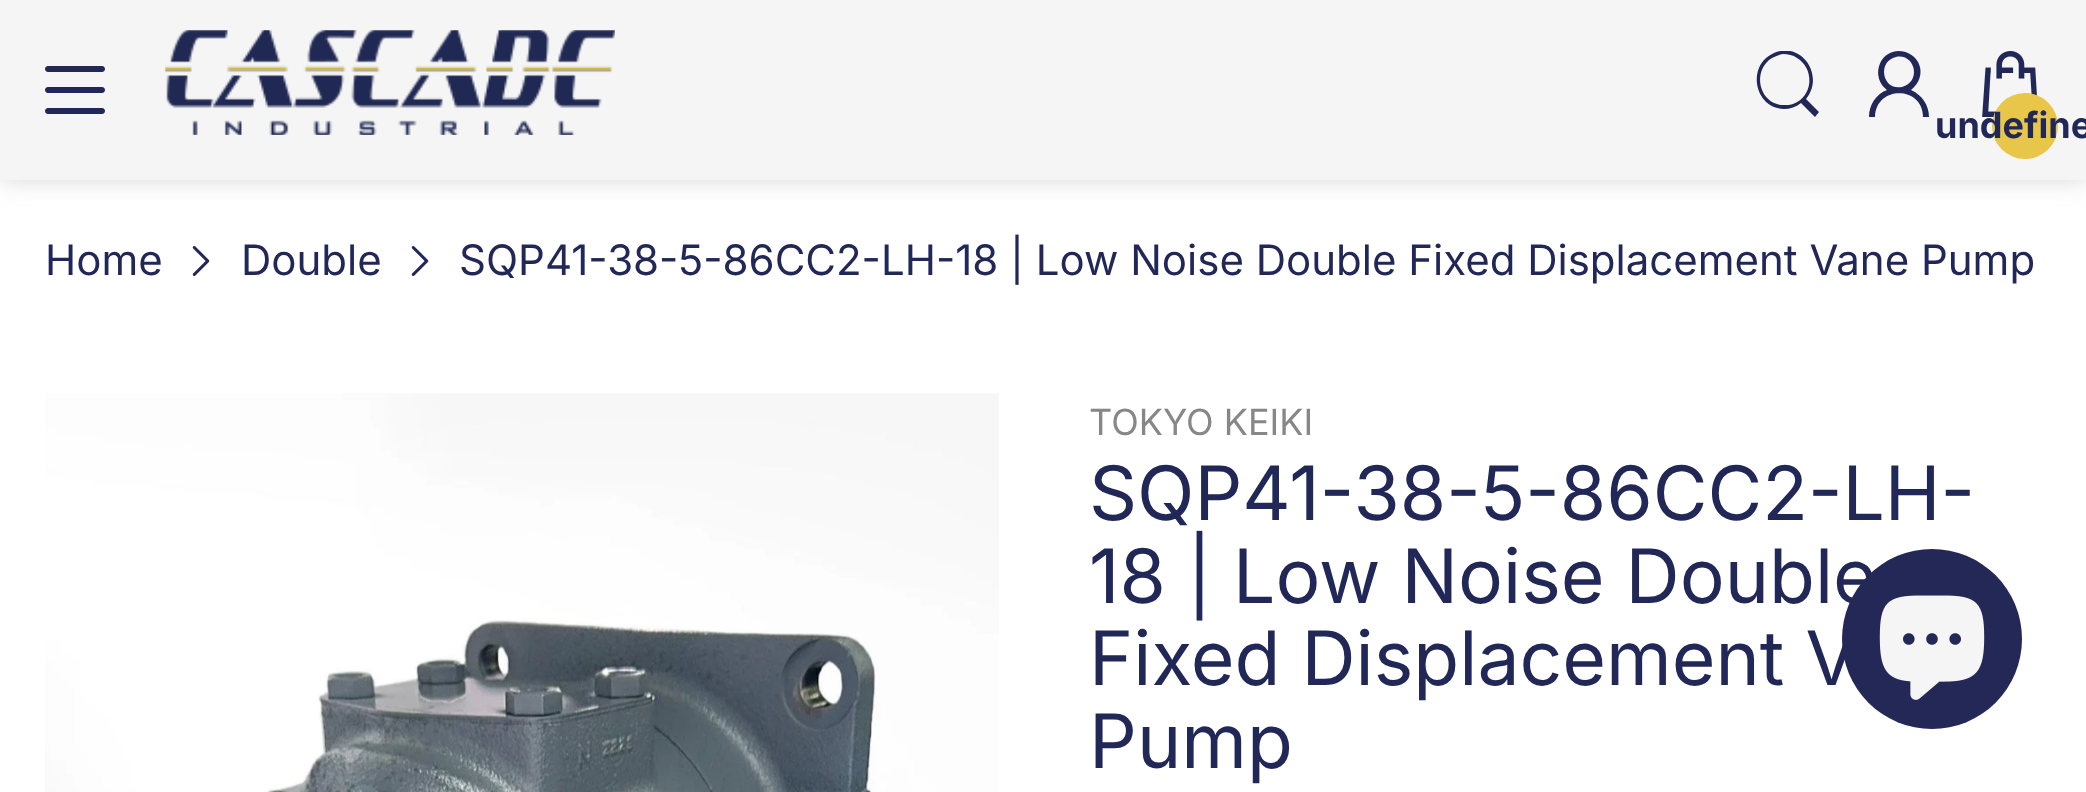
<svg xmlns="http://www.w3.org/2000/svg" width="2086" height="792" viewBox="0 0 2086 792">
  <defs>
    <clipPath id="clip1"><rect x="1755" y="51" width="66" height="66"/></clipPath>
  </defs>
  <rect width="100%" height="100%" fill="rgb(255,255,255)"/>
  <rect x="0" y="0" width="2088" height="180" fill="rgba(201,201,201,0.75)" filter="blur(12px)"/>
  <rect x="0" y="0" width="2086" height="180" fill="rgb(245,245,245)"/>
  <image x="45" y="66" width="60" height="48" href="pic1.png"/>
  <image x="165" y="30" width="450" height="105" href="pic2.png"/>
  <g clip-path="url(#clip1)">
    <path d="M1774 53C1802 41 1825 76 1806 99L1819 112L1815 117L1801 103C1796 107 1790 109 1784 109C1754 108 1746 65 1774 53M1783 54C1778 55 1773 57 1769 60C1751 76 1762 107 1786 105C1811 104 1818 71 1797 58C1793 55 1788 54 1783 54Z" fill="rgb(33,40,88)"/>
  </g>
  <path d="M1898 51C1920 51 1929 76 1911 90C1922 95 1929 105 1929 117H1923C1923 86 1876 85 1875 117H1869C1869 105 1876 94 1887 90C1871 78 1878 52 1898 51M1896 57C1877 61 1882 91 1902 87C1922 82 1915 53 1896 57Z" fill="rgb(33,40,88)"/>
  <image x="1982" y="51" width="55" height="66" href="pic3.png"/>
  <circle cx="2025" cy="126" r="33" fill="rgb(232,198,74)"/>
  <text x="1935" y="138" font-family="Inter" font-size="36" font-weight="bold" fill="rgb(33,40,88)">undefine</text>
  <text x="45" y="275" font-family="Inter" font-size="42" fill="rgb(33,40,88)">Home</text>
  <image x="192" y="246" width="18" height="30" href="pic4.png"/>
  <text x="241" y="275" font-family="Inter" font-size="42" fill="rgb(33,40,88)">Double</text>
  <image x="411" y="246" width="18" height="30" href="pic4.png"/>
  <text x="459" y="275" font-family="Inter" font-size="42" fill="rgb(33,40,88)">SQP41-38-5-86CC2-LH-18 | Low Noise Double Fixed Displacement Vane Pump</text>
  <image x="45" y="393" width="954" height="399" href="pic5.png"/>
  <text x="1089" y="435" font-family="Inter" font-size="36" fill="rgb(135,135,135)">TOKYO KEIKI</text>
  <g font-family="Inter" font-size="75" fill="rgb(33,40,88)">
    <text>
      <tspan x="1089" y="520">SQP41-38-5-86CC2-LH-</tspan>
      <tspan x="1089" y="603">18 | Low Noise Double</tspan>
      <tspan x="1089" y="685">Fixed Displacement V</tspan>
      <tspan x="1089" y="768">Pump</tspan>
    </text>
  </g>
  <circle cx="1932" cy="639" r="90" fill="rgb(35,40,87)"/>
  <image x="1879" y="595" width="106" height="105" href="pic6.png"/>
</svg>
